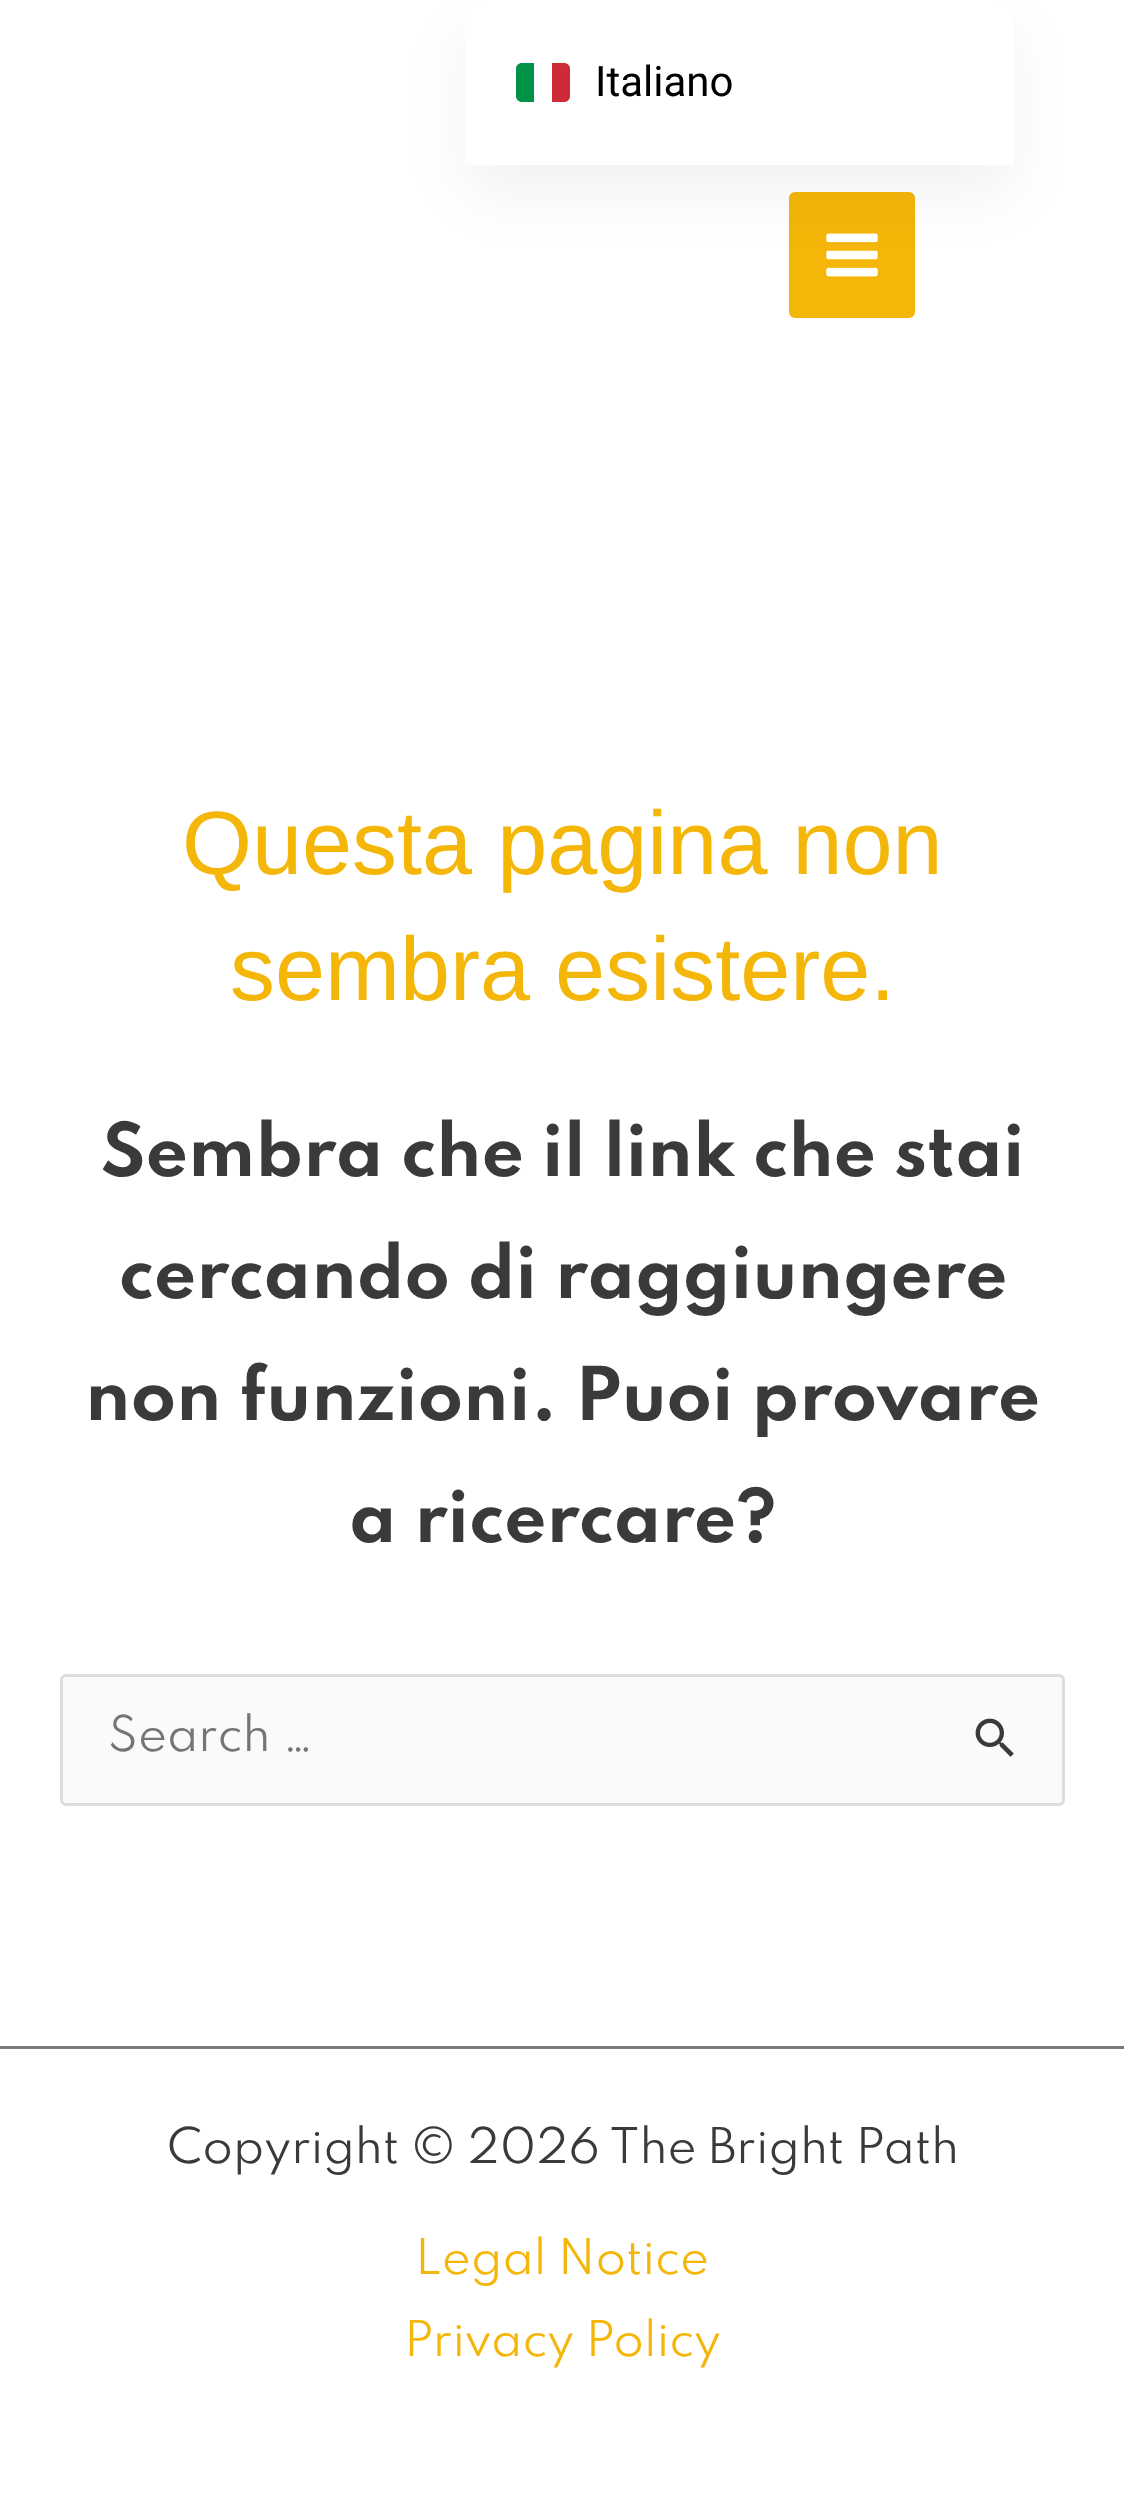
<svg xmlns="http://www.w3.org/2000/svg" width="1124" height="2494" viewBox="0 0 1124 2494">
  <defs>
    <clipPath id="clip1"><path d="M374 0H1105V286H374ZM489 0H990C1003.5 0 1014 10.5 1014 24V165H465V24C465 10.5 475.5 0 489 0Z" clip-rule="evenodd"/></clipPath>
  </defs>
  <rect width="100%" height="100%" fill="rgb(255,255,255)"/>
  <rect x="789" y="192" width="126" height="126" rx="6" fill="rgb(244,182,9)"/>
  <image x="826" y="233" width="52" height="44" href="pic1.png"/>
  <g clip-path="url(#clip1)">
    <rect x="465" y="30" width="549" height="165" rx="24" fill="rgba(0,0,0,0.05)" filter="blur(30px)"/>
  </g>
  <path d="M522 63H534V102H522C518.5 102 516 99.5 516 96V69C516 65.5 518.5 63 522 63Z" fill="rgb(0,146,70)"/>
  <path d="M552 63H564C567.5 63 570 65.5 570 69V96C570 99.5 567.5 102 564 102H552Z" fill="rgb(206,43,55)"/>
  <text x="595" y="96" font-family="Roboto" font-size="42" fill="rgb(0,0,0)">Italiano</text>
  <g font-family="Liberation Sans" font-size="90" fill="rgb(244,182,9)">
    <text x="182" y="874">Questa pagina non</text>
    <text x="230" y="1000">sembra esistere.</text>
  </g>
  <g font-family="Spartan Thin" font-size="65.7" font-weight="bold" fill="rgb(58,58,58)">
    <text x="101" y="1176">Sembra che il link che stai</text>
    <text x="119" y="1298">cercando di raggiungere</text>
    <text x="85" y="1420">non funzioni. Puoi provare</text>
    <text x="349" y="1542">a ricercare?</text>
  </g>
  <rect x="61.5" y="1675.5" width="1002" height="129" rx="4.5" fill="rgb(250,250,250)" stroke="rgb(221,221,221)" stroke-width="3"/>
  <text x="108" y="1751" font-family="Spartan Thin" font-size="43.75" fill="rgb(117,117,117)">Search …</text>
  <image x="975" y="1718" width="39" height="39" href="pic2.png"/>
  <rect x="0" y="2046" width="1124" height="3" fill="rgb(122,122,122)"/>
  <text x="167" y="2163" font-family="Spartan Thin" font-size="43.75" fill="rgb(58,58,58)">Copyright © 2026 The Bright Path</text>
  <g font-family="Spartan Thin" font-size="43.75" fill="rgb(244,182,9)">
    <text x="415" y="2274">Legal Notice</text>
    <text x="404" y="2356">Privacy Policy</text>
  </g>
</svg>
